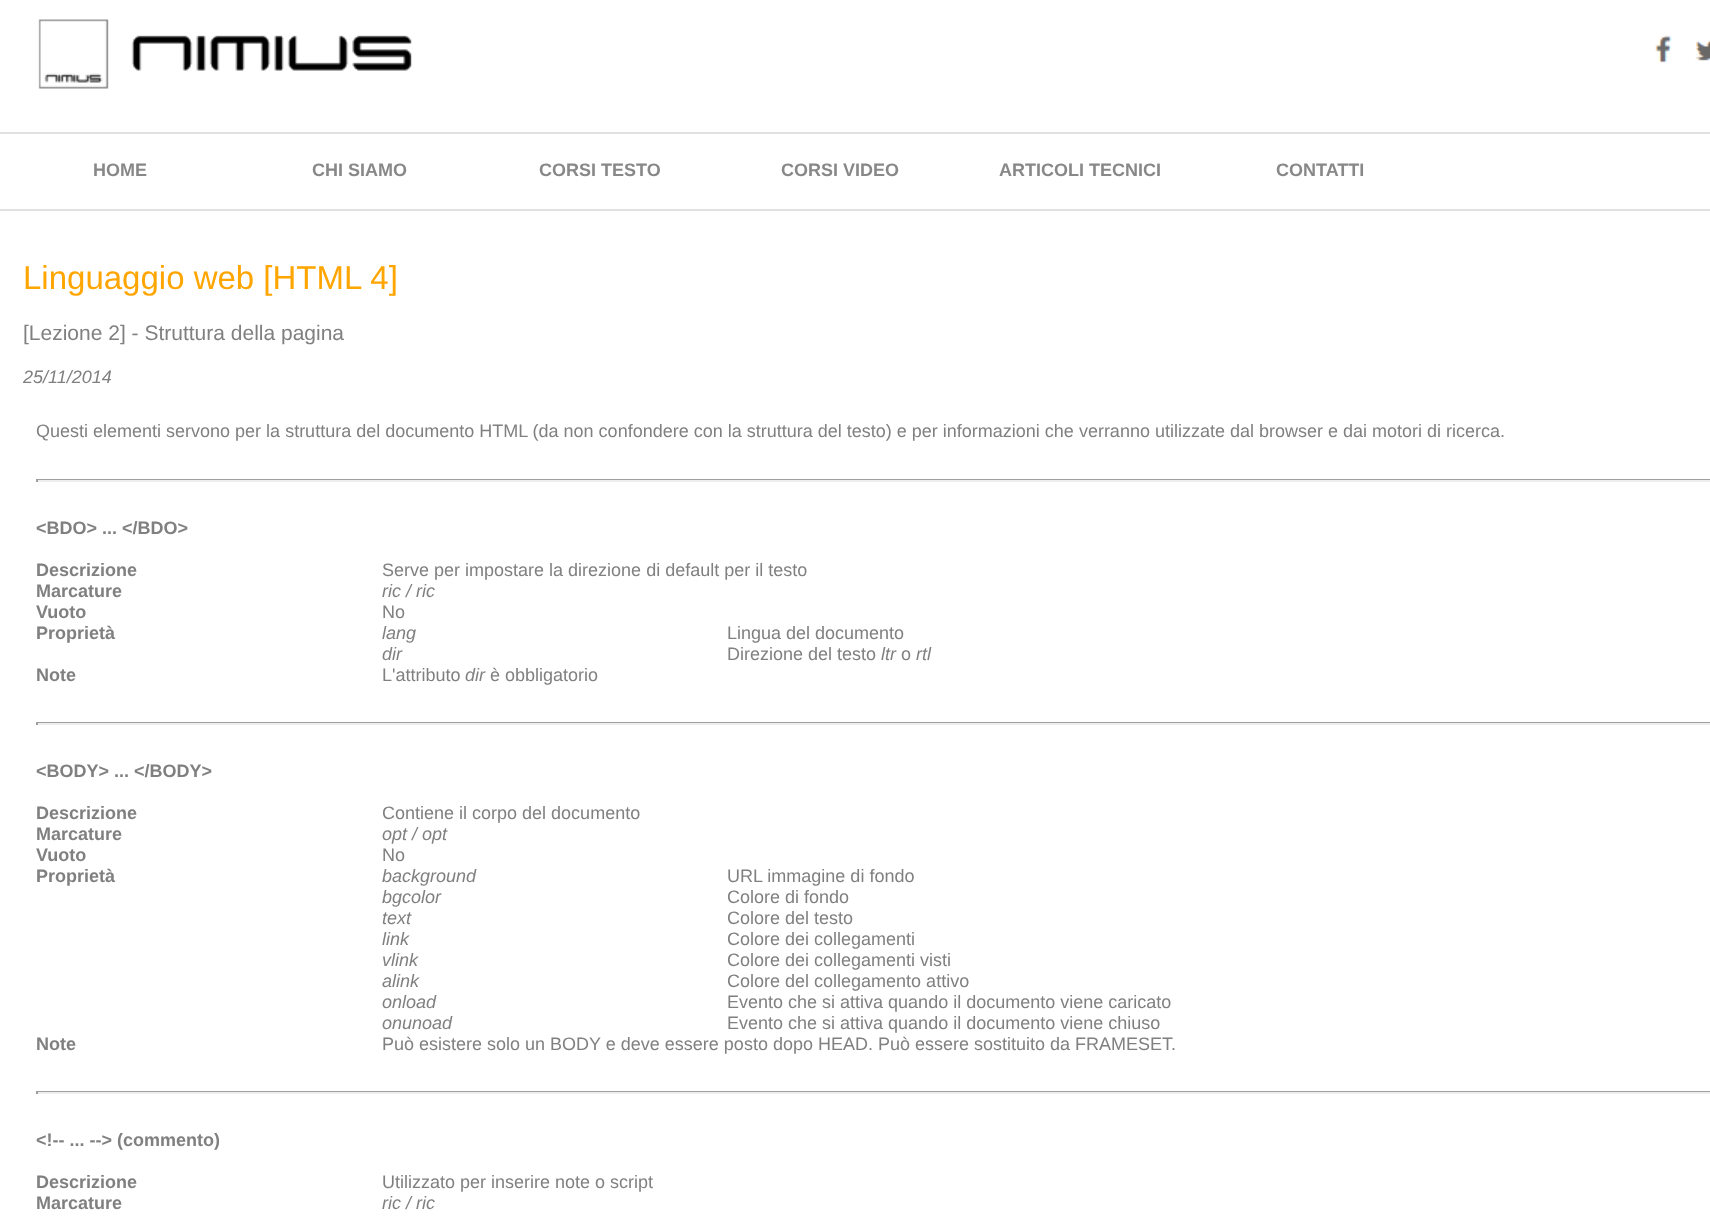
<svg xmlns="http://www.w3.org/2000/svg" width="1710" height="1220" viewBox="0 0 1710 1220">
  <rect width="100%" height="100%" fill="rgb(255,255,255)"/>
  <image x="38" y="19" width="374" height="70" href="pic1.png"/>
  <image x="1655" y="35" width="17" height="28" href="pic2.png"/>
  <image x="1695" y="40" width="15" height="21" href="pic3.png"/>
  <rect x="0" y="132" width="1710" height="2" fill="rgb(224,224,224)"/>
  <rect x="0" y="209" width="1710" height="2" fill="rgb(224,224,224)"/>
  <g font-family="Liberation Sans" font-size="18" font-weight="bold" fill="rgb(136,136,136)">
    <text x="93" y="176">HOME</text>
    <text x="312" y="176">CHI SIAMO</text>
    <text x="539" y="176">CORSI TESTO</text>
    <text x="781" y="176">CORSI VIDEO</text>
    <text x="999" y="176">ARTICOLI TECNICI</text>
    <text x="1276" y="176">CONTATTI</text>
  </g>
  <text x="23" y="289" font-family="Liberation Sans" font-size="33" fill="rgb(255,165,0)">Linguaggio web [HTML 4]</text>
  <text x="23" y="340" font-family="Liberation Sans" font-size="21" fill="rgb(128,128,128)">[Lezione 2] - Struttura della pagina</text>
  <text x="23" y="383" font-family="Liberation Sans" font-size="18" font-style="italic" fill="rgb(128,128,128)">25/11/2014</text>
  <text x="36" y="437" font-family="Liberation Sans" font-size="18" fill="rgb(128,128,128)">Questi elementi servono per la struttura del documento HTML (da non confondere con la struttura del testo) e per informazioni che verranno utilizzate dal browser e dai motori di ricerca.</text>
  <rect x="36" y="479" width="1674" height="1" fill="rgb(159,159,159)"/>
  <rect x="36" y="480" width="1674" height="2" fill="rgb(238,238,238)"/>
  <rect x="36" y="479" width="2" height="3" fill="rgb(159,159,159)"/>
  <g font-family="Liberation Sans" font-size="18" font-weight="bold" fill="rgb(128,128,128)">
    <text x="36" y="534">&lt;BDO&gt; ... &lt;/BDO&gt;</text>
    <text x="36" y="576">Descrizione</text>
  </g>
  <text x="382" y="576" font-family="Liberation Sans" font-size="18" fill="rgb(128,128,128)">Serve per impostare la direzione di default per il testo</text>
  <text x="36" y="597" font-family="Liberation Sans" font-size="18" font-weight="bold" fill="rgb(128,128,128)">Marcature</text>
  <text x="382" y="597" font-family="Liberation Sans" font-size="18" font-style="italic" fill="rgb(128,128,128)">ric / ric</text>
  <text x="36" y="618" font-family="Liberation Sans" font-size="18" font-weight="bold" fill="rgb(128,128,128)">Vuoto</text>
  <text x="382" y="618" font-family="Liberation Sans" font-size="18" fill="rgb(128,128,128)">No</text>
  <text x="36" y="639" font-family="Liberation Sans" font-size="18" font-weight="bold" fill="rgb(128,128,128)">Proprietà</text>
  <text x="382" y="639" font-family="Liberation Sans" font-size="18" font-style="italic" fill="rgb(128,128,128)">lang</text>
  <text x="727" y="639" font-family="Liberation Sans" font-size="18" fill="rgb(128,128,128)">Lingua del documento</text>
  <text x="382" y="660" font-family="Liberation Sans" font-size="18" font-style="italic" fill="rgb(128,128,128)">dir</text>
  <text x="727" y="660" font-family="Liberation Sans" font-size="18" fill="rgb(128,128,128)">Direzione del testo</text>
  <text x="881" y="660" font-family="Liberation Sans" font-size="18" font-style="italic" fill="rgb(128,128,128)">ltr</text>
  <text x="901" y="660" font-family="Liberation Sans" font-size="18" fill="rgb(128,128,128)">o</text>
  <text x="916" y="660" font-family="Liberation Sans" font-size="18" font-style="italic" fill="rgb(128,128,128)">rtl</text>
  <text x="36" y="681" font-family="Liberation Sans" font-size="18" font-weight="bold" fill="rgb(128,128,128)">Note</text>
  <text x="382" y="681" font-family="Liberation Sans" font-size="18" fill="rgb(128,128,128)">L'attributo</text>
  <text x="465" y="681" font-family="Liberation Sans" font-size="18" font-style="italic" fill="rgb(128,128,128)">dir</text>
  <text x="490" y="681" font-family="Liberation Sans" font-size="18" fill="rgb(128,128,128)">è obbligatorio</text>
  <rect x="36" y="722" width="1674" height="1" fill="rgb(159,159,159)"/>
  <rect x="36" y="723" width="1674" height="2" fill="rgb(238,238,238)"/>
  <rect x="36" y="722" width="2" height="3" fill="rgb(159,159,159)"/>
  <g font-family="Liberation Sans" font-size="18" font-weight="bold" fill="rgb(128,128,128)">
    <text x="36" y="777">&lt;BODY&gt; ... &lt;/BODY&gt;</text>
    <text x="36" y="819">Descrizione</text>
  </g>
  <text x="382" y="819" font-family="Liberation Sans" font-size="18" fill="rgb(128,128,128)">Contiene il corpo del documento</text>
  <text x="36" y="840" font-family="Liberation Sans" font-size="18" font-weight="bold" fill="rgb(128,128,128)">Marcature</text>
  <text x="382" y="840" font-family="Liberation Sans" font-size="18" font-style="italic" fill="rgb(128,128,128)">opt / opt</text>
  <text x="36" y="861" font-family="Liberation Sans" font-size="18" font-weight="bold" fill="rgb(128,128,128)">Vuoto</text>
  <text x="382" y="861" font-family="Liberation Sans" font-size="18" fill="rgb(128,128,128)">No</text>
  <text x="36" y="882" font-family="Liberation Sans" font-size="18" font-weight="bold" fill="rgb(128,128,128)">Proprietà</text>
  <text x="382" y="882" font-family="Liberation Sans" font-size="18" font-style="italic" fill="rgb(128,128,128)">background</text>
  <text x="727" y="882" font-family="Liberation Sans" font-size="18" fill="rgb(128,128,128)">URL immagine di fondo</text>
  <text x="382" y="903" font-family="Liberation Sans" font-size="18" font-style="italic" fill="rgb(128,128,128)">bgcolor</text>
  <text x="727" y="903" font-family="Liberation Sans" font-size="18" fill="rgb(128,128,128)">Colore di fondo</text>
  <text x="382" y="924" font-family="Liberation Sans" font-size="18" font-style="italic" fill="rgb(128,128,128)">text</text>
  <text x="727" y="924" font-family="Liberation Sans" font-size="18" fill="rgb(128,128,128)">Colore del testo</text>
  <text x="382" y="945" font-family="Liberation Sans" font-size="18" font-style="italic" fill="rgb(128,128,128)">link</text>
  <text x="727" y="945" font-family="Liberation Sans" font-size="18" fill="rgb(128,128,128)">Colore dei collegamenti</text>
  <text x="382" y="966" font-family="Liberation Sans" font-size="18" font-style="italic" fill="rgb(128,128,128)">vlink</text>
  <text x="727" y="966" font-family="Liberation Sans" font-size="18" fill="rgb(128,128,128)">Colore dei collegamenti visti</text>
  <text x="382" y="987" font-family="Liberation Sans" font-size="18" font-style="italic" fill="rgb(128,128,128)">alink</text>
  <text x="727" y="987" font-family="Liberation Sans" font-size="18" fill="rgb(128,128,128)">Colore del collegamento attivo</text>
  <text x="382" y="1008" font-family="Liberation Sans" font-size="18" font-style="italic" fill="rgb(128,128,128)">onload</text>
  <text x="727" y="1008" font-family="Liberation Sans" font-size="18" fill="rgb(128,128,128)">Evento che si attiva quando il documento viene caricato</text>
  <text x="382" y="1029" font-family="Liberation Sans" font-size="18" font-style="italic" fill="rgb(128,128,128)">onunoad</text>
  <text x="727" y="1029" font-family="Liberation Sans" font-size="18" fill="rgb(128,128,128)">Evento che si attiva quando il documento viene chiuso</text>
  <text x="36" y="1050" font-family="Liberation Sans" font-size="18" font-weight="bold" fill="rgb(128,128,128)">Note</text>
  <text x="382" y="1050" font-family="Liberation Sans" font-size="18" fill="rgb(128,128,128)">Può esistere solo un BODY e deve essere posto dopo HEAD. Può essere sostituito da FRAMESET.</text>
  <rect x="36" y="1091" width="1674" height="1" fill="rgb(159,159,159)"/>
  <rect x="36" y="1092" width="1674" height="2" fill="rgb(238,238,238)"/>
  <rect x="36" y="1091" width="2" height="3" fill="rgb(159,159,159)"/>
  <g font-family="Liberation Sans" font-size="18" font-weight="bold" fill="rgb(128,128,128)">
    <text x="36" y="1146">&lt;!-- ... --&gt; (commento)</text>
    <text x="36" y="1188">Descrizione</text>
  </g>
  <text x="382" y="1188" font-family="Liberation Sans" font-size="18" fill="rgb(128,128,128)">Utilizzato per inserire note o script</text>
  <text x="36" y="1209" font-family="Liberation Sans" font-size="18" font-weight="bold" fill="rgb(128,128,128)">Marcature</text>
  <text x="382" y="1209" font-family="Liberation Sans" font-size="18" font-style="italic" fill="rgb(128,128,128)">ric / ric</text>
</svg>
